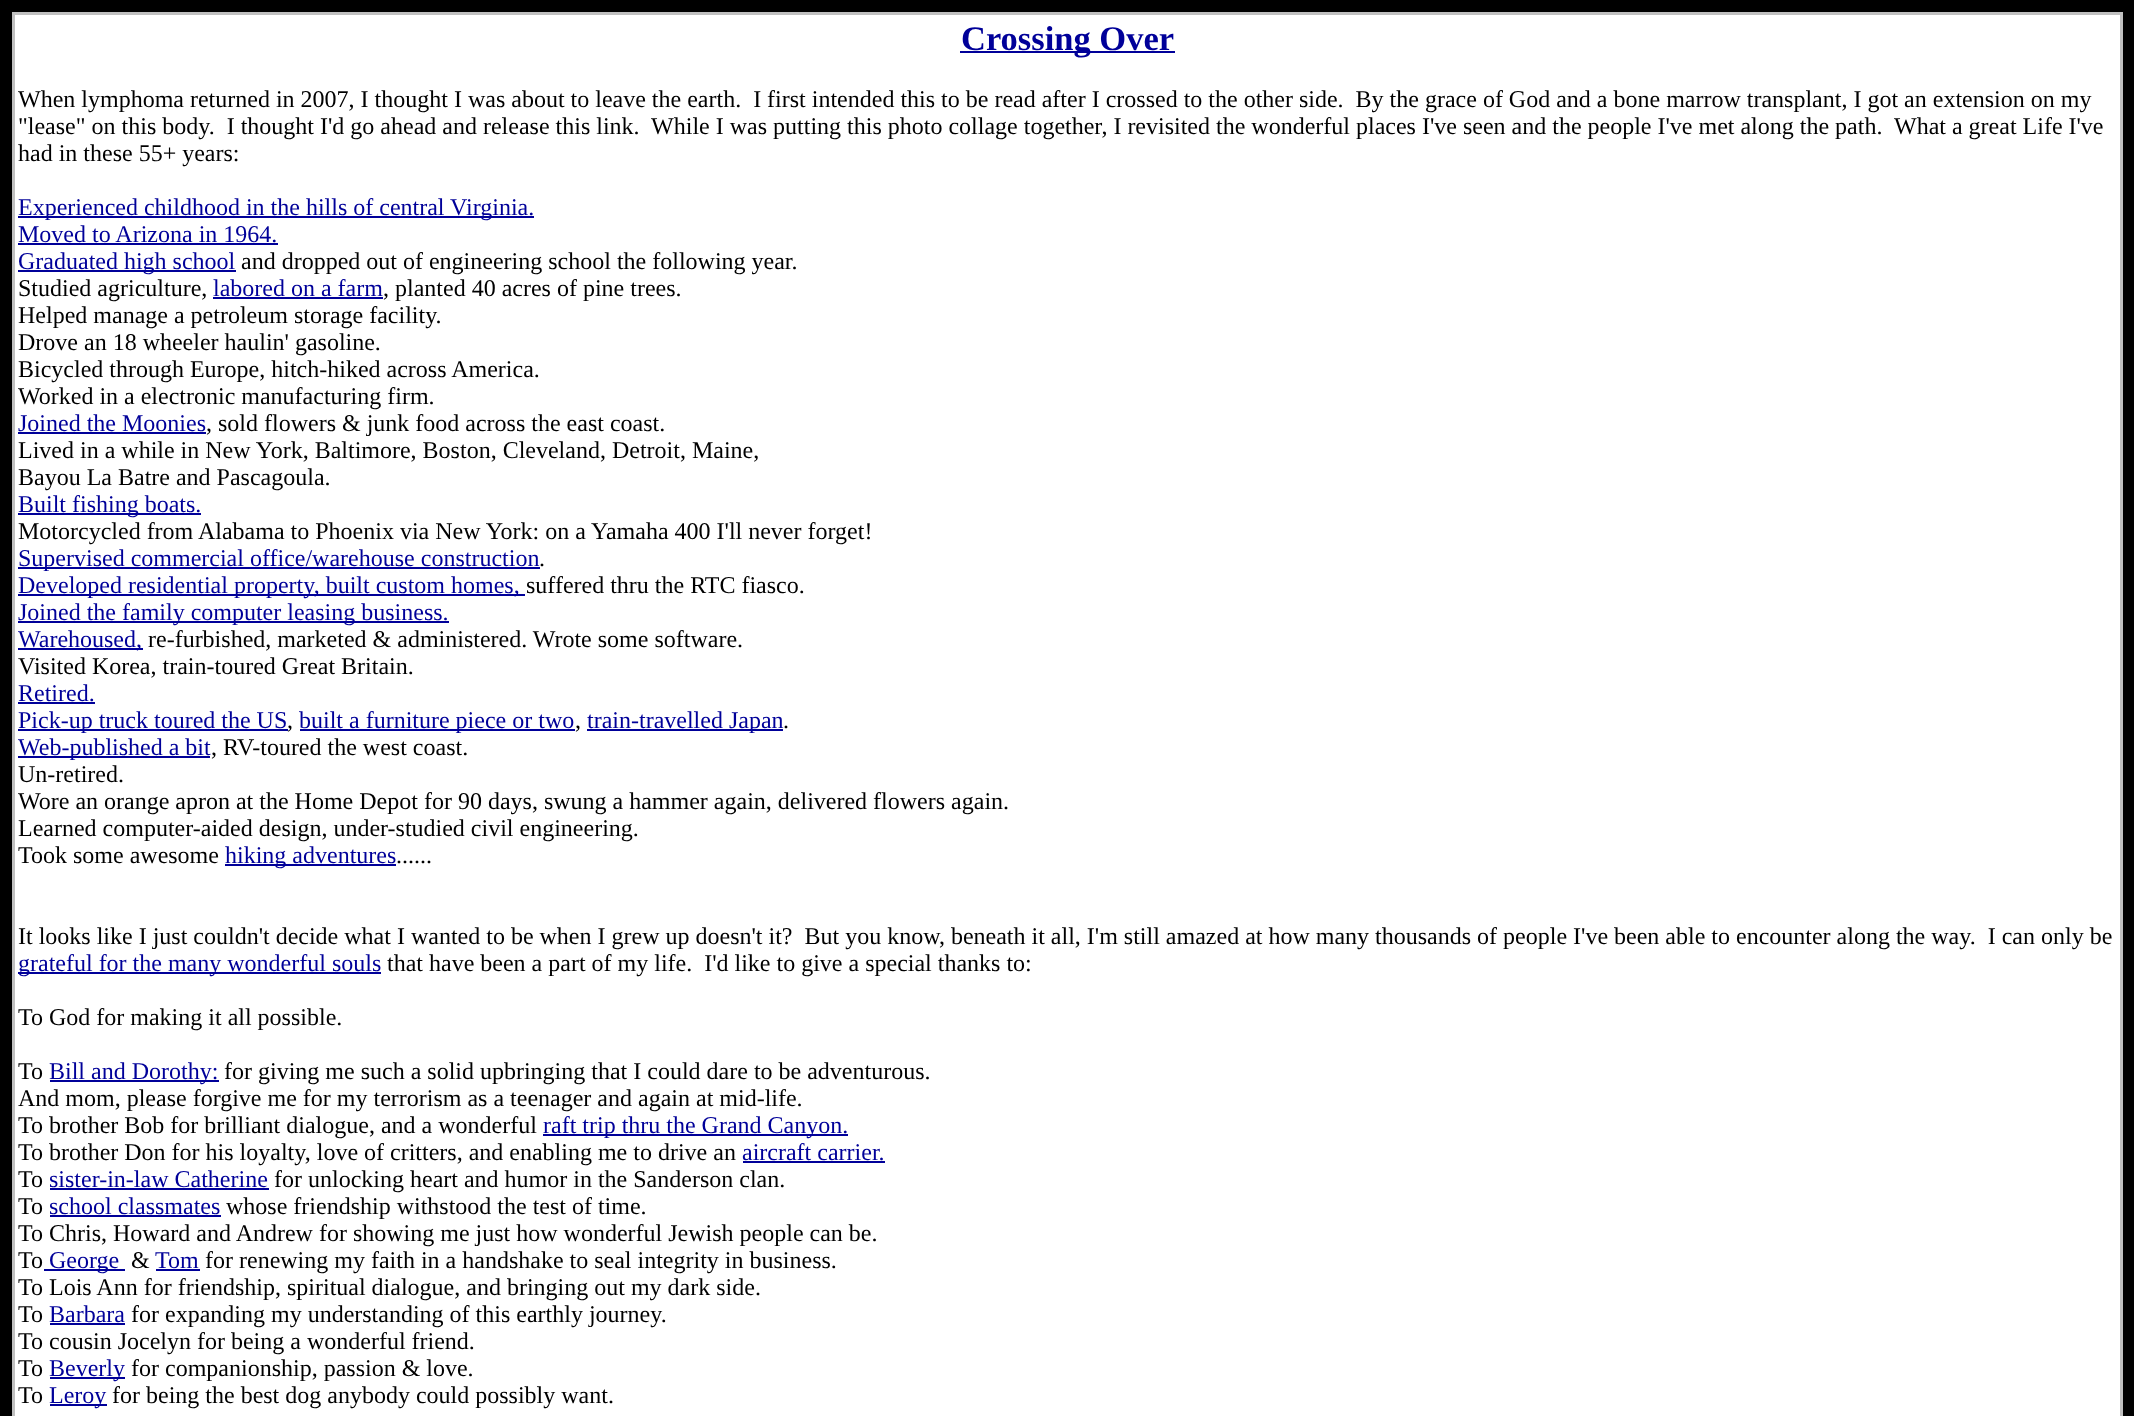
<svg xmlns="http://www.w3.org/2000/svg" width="2134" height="1416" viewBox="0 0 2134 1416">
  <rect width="100%" height="100%" fill="rgb(0,0,0)"/>
  <rect x="12" y="12" width="2111" height="1404" fill="rgb(192,192,192)"/>
  <rect x="15" y="15" width="2105" height="1401" fill="rgb(255,255,255)"/>
  <rect x="960" y="51" width="215" height="2" fill="rgb(0,0,153)"/>
  <text x="961" y="50" font-family="Liberation Serif" font-size="34.5" font-weight="bold" fill="rgb(0,0,153)">Crossing Over</text>
  <g font-family="Liberation Serif" font-size="24" fill="rgb(0,0,0)">
    <text xml:space="preserve"><tspan x="18" y="107">When lymphoma returned in 2007, I thought I was about to leave the earth.  I first intended this to be read after I crossed to the other side.  By the grace of God and a bone marrow transplant, I got an extension on my</tspan><tspan x="18" y="134">"lease" on this body.  I thought I'd go ahead and release this link.  While I was putting this photo collage together, I revisited the wonderful places I've seen and the people I've met along the path.  What a great Life I've</tspan><tspan x="18" y="161">had in these 55+ years:</tspan></text>
  </g>
  <rect x="18" y="216" width="516" height="2" fill="rgb(0,0,153)"/>
  <g font-family="Liberation Serif" font-size="24" fill="rgb(0,0,153)">
    <text>
      <tspan x="18" y="215">Experienced childhood in the hills of central Virginia.</tspan>
      <tspan x="18" y="242">Moved to Arizona in 1964.</tspan>
    </text>
  </g>
  <rect x="18" y="243" width="260" height="2" fill="rgb(0,0,153)"/>
  <rect x="18" y="270" width="218" height="2" fill="rgb(0,0,153)"/>
  <text x="18" y="269" font-family="Liberation Serif" font-size="24" fill="rgb(0,0,153)">Graduated high school</text>
  <g font-family="Liberation Serif" font-size="24" fill="rgb(0,0,0)">
    <text x="241" y="269">and dropped out of engineering school the following year.</text>
    <text x="18" y="296">Studied agriculture,</text>
  </g>
  <text x="213" y="296" font-family="Liberation Serif" font-size="24" fill="rgb(0,0,153)">labored on a farm</text>
  <text x="383" y="296" font-family="Liberation Serif" font-size="24" fill="rgb(0,0,0)">, planted 40 acres of pine trees.</text>
  <rect x="213" y="297" width="170" height="2" fill="rgb(0,0,153)"/>
  <g font-family="Liberation Serif" font-size="24" fill="rgb(0,0,0)">
    <text>
      <tspan x="18" y="323">Helped manage a petroleum storage facility.</tspan>
      <tspan x="18" y="350">Drove an 18 wheeler haulin' gasoline.</tspan>
      <tspan x="18" y="377">Bicycled through Europe, hitch-hiked across America.</tspan>
      <tspan x="18" y="404">Worked in a electronic manufacturing firm.</tspan>
    </text>
  </g>
  <text x="18" y="431" font-family="Liberation Serif" font-size="24" fill="rgb(0,0,153)">Joined the Moonies</text>
  <text x="206" y="431" font-family="Liberation Serif" font-size="24" fill="rgb(0,0,0)">, sold flowers &amp; junk food across the east coast.</text>
  <rect x="18" y="432" width="188" height="2" fill="rgb(0,0,153)"/>
  <g font-family="Liberation Serif" font-size="24" fill="rgb(0,0,0)">
    <text>
      <tspan x="18" y="458">Lived in a while in New York, Baltimore, Boston, Cleveland, Detroit, Maine,</tspan>
      <tspan x="18" y="485">Bayou La Batre and Pascagoula.</tspan>
    </text>
  </g>
  <rect x="18" y="513" width="183" height="2" fill="rgb(0,0,153)"/>
  <text x="18" y="512" font-family="Liberation Serif" font-size="24" fill="rgb(0,0,153)">Built fishing boats.</text>
  <text x="18" y="539" font-family="Liberation Serif" font-size="24" fill="rgb(0,0,0)">Motorcycled from Alabama to Phoenix via New York: on a Yamaha 400 I'll never forget!</text>
  <rect x="18" y="567" width="522" height="2" fill="rgb(0,0,153)"/>
  <text x="18" y="566" font-family="Liberation Serif" font-size="24" fill="rgb(0,0,153)">Supervised commercial office/warehouse construction</text>
  <text x="539" y="566" font-family="Liberation Serif" font-size="24" fill="rgb(0,0,0)">.</text>
  <rect x="18" y="594" width="507" height="2" fill="rgb(0,0,153)"/>
  <text x="18" y="593" font-family="Liberation Serif" font-size="24" fill="rgb(0,0,153)">Developed residential property, built custom homes,</text>
  <text x="526" y="593" font-family="Liberation Serif" font-size="24" fill="rgb(0,0,0)">suffered thru the RTC fiasco.</text>
  <rect x="18" y="621" width="431" height="2" fill="rgb(0,0,153)"/>
  <text x="18" y="620" font-family="Liberation Serif" font-size="24" fill="rgb(0,0,153)">Joined the family computer leasing business.</text>
  <rect x="18" y="648" width="125" height="2" fill="rgb(0,0,153)"/>
  <text x="18" y="647" font-family="Liberation Serif" font-size="24" fill="rgb(0,0,153)">Warehoused,</text>
  <g font-family="Liberation Serif" font-size="24" fill="rgb(0,0,0)">
    <text x="148" y="647">re-furbished, marketed &amp; administered. Wrote some software.</text>
    <text x="18" y="674">Visited Korea, train-toured Great Britain.</text>
  </g>
  <text x="18" y="701" font-family="Liberation Serif" font-size="24" fill="rgb(0,0,153)">Retired.</text>
  <rect x="18" y="702" width="77" height="2" fill="rgb(0,0,153)"/>
  <rect x="18" y="729" width="270" height="2" fill="rgb(0,0,153)"/>
  <text x="18" y="728" font-family="Liberation Serif" font-size="24" fill="rgb(0,0,153)">Pick-up truck toured the US</text>
  <text x="287" y="728" font-family="Liberation Serif" font-size="24" fill="rgb(0,0,0)">,</text>
  <rect x="300" y="729" width="275" height="2" fill="rgb(0,0,153)"/>
  <text x="299" y="728" font-family="Liberation Serif" font-size="24" fill="rgb(0,0,153)">built a furniture piece or two</text>
  <text x="575" y="728" font-family="Liberation Serif" font-size="24" fill="rgb(0,0,0)">,</text>
  <rect x="587" y="729" width="196" height="2" fill="rgb(0,0,153)"/>
  <text x="587" y="728" font-family="Liberation Serif" font-size="24" fill="rgb(0,0,153)">train-travelled Japan</text>
  <text x="783" y="728" font-family="Liberation Serif" font-size="24" fill="rgb(0,0,0)">.</text>
  <rect x="18" y="756" width="192" height="2" fill="rgb(0,0,153)"/>
  <text x="18" y="755" font-family="Liberation Serif" font-size="24" fill="rgb(0,0,153)">Web-published a bit</text>
  <g font-family="Liberation Serif" font-size="24" fill="rgb(0,0,0)">
    <text x="211" y="755">, RV-toured the west coast.</text>
    <text>
      <tspan x="18" y="782">Un-retired.</tspan>
      <tspan x="18" y="809">Wore an orange apron at the Home Depot for 90 days, swung a hammer again, delivered flowers again.</tspan>
      <tspan x="18" y="836">Learned computer-aided design, under-studied civil engineering.</tspan>
      <tspan x="18" y="863">Took some awesome</tspan>
    </text>
  </g>
  <rect x="225" y="864" width="171" height="2" fill="rgb(0,0,153)"/>
  <text x="225" y="863" font-family="Liberation Serif" font-size="24" fill="rgb(0,0,153)">hiking adventures</text>
  <g font-family="Liberation Serif" font-size="24" fill="rgb(0,0,0)">
    <text x="396" y="863">......</text>
    <text x="18" y="944" xml:space="preserve">It looks like I just couldn't decide what I wanted to be when I grew up doesn't it?  But you know, beneath it all, I'm still amazed at how many thousands of people I've been able to encounter along the way.  I can only be</text>
  </g>
  <rect x="18" y="972" width="363" height="2" fill="rgb(0,0,153)"/>
  <text x="18" y="971" font-family="Liberation Serif" font-size="24" fill="rgb(0,0,153)">grateful for the many wonderful souls</text>
  <g font-family="Liberation Serif" font-size="24" fill="rgb(0,0,0)">
    <text x="387" y="971" xml:space="preserve">that have been a part of my life.  I'd like to give a special thanks to:</text>
    <text x="18" y="1025">To God for making it all possible.</text>
    <text x="18" y="1079">To</text>
  </g>
  <rect x="50" y="1080" width="169" height="2" fill="rgb(0,0,153)"/>
  <text x="49" y="1079" font-family="Liberation Serif" font-size="24" fill="rgb(0,0,153)">Bill and Dorothy:</text>
  <g font-family="Liberation Serif" font-size="24" fill="rgb(0,0,0)">
    <text x="224" y="1079">for giving me such a solid upbringing that I could dare to be adventurous.</text>
    <text>
      <tspan x="18" y="1106">And mom, please forgive me for my terrorism as a teenager and again at mid-life.</tspan>
      <tspan x="18" y="1133">To brother Bob for brilliant dialogue, and a wonderful</tspan>
    </text>
  </g>
  <rect x="543" y="1134" width="305" height="2" fill="rgb(0,0,153)"/>
  <text x="543" y="1133" font-family="Liberation Serif" font-size="24" fill="rgb(0,0,153)">raft trip thru the Grand Canyon.</text>
  <text x="18" y="1160" font-family="Liberation Serif" font-size="24" fill="rgb(0,0,0)">To brother Don for his loyalty, love of critters, and enabling me to drive an</text>
  <text x="742" y="1160" font-family="Liberation Serif" font-size="24" fill="rgb(0,0,153)">aircraft carrier.</text>
  <rect x="743" y="1161" width="142" height="2" fill="rgb(0,0,153)"/>
  <text x="18" y="1187" font-family="Liberation Serif" font-size="24" fill="rgb(0,0,0)">To</text>
  <text x="49" y="1187" font-family="Liberation Serif" font-size="24" fill="rgb(0,0,153)">sister-in-law Catherine</text>
  <rect x="50" y="1188" width="219" height="2" fill="rgb(0,0,153)"/>
  <g font-family="Liberation Serif" font-size="24" fill="rgb(0,0,0)">
    <text x="274" y="1187">for unlocking heart and humor in the Sanderson clan.</text>
    <text x="18" y="1214">To</text>
  </g>
  <text x="49" y="1214" font-family="Liberation Serif" font-size="24" fill="rgb(0,0,153)">school classmates</text>
  <rect x="50" y="1215" width="171" height="2" fill="rgb(0,0,153)"/>
  <g font-family="Liberation Serif" font-size="24" fill="rgb(0,0,0)">
    <text x="226" y="1214">whose friendship withstood the test of time.</text>
    <text>
      <tspan x="18" y="1241">To Chris, Howard and Andrew for showing me just how wonderful Jewish people can be.</tspan>
      <tspan x="18" y="1268">To</tspan>
    </text>
  </g>
  <rect x="44" y="1269" width="81" height="2" fill="rgb(0,0,153)"/>
  <text x="49" y="1268" font-family="Liberation Serif" font-size="24" fill="rgb(0,0,153)">George</text>
  <text x="131" y="1268" font-family="Liberation Serif" font-size="24" fill="rgb(0,0,0)">&amp;</text>
  <text x="155" y="1268" font-family="Liberation Serif" font-size="24" fill="rgb(0,0,153)">Tom</text>
  <rect x="156" y="1269" width="44" height="2" fill="rgb(0,0,153)"/>
  <g font-family="Liberation Serif" font-size="24" fill="rgb(0,0,0)">
    <text x="205" y="1268">for renewing my faith in a handshake to seal integrity in business.</text>
    <text>
      <tspan x="18" y="1295">To Lois Ann for friendship, spiritual dialogue, and bringing out my dark side.</tspan>
      <tspan x="18" y="1322">To</tspan>
    </text>
  </g>
  <text x="49" y="1322" font-family="Liberation Serif" font-size="24" fill="rgb(0,0,153)">Barbara</text>
  <rect x="50" y="1323" width="75" height="2" fill="rgb(0,0,153)"/>
  <g font-family="Liberation Serif" font-size="24" fill="rgb(0,0,0)">
    <text x="131" y="1322">for expanding my understanding of this earthly journey.</text>
    <text>
      <tspan x="18" y="1349">To cousin Jocelyn for being a wonderful friend.</tspan>
      <tspan x="18" y="1376">To</tspan>
    </text>
  </g>
  <rect x="50" y="1377" width="75" height="2" fill="rgb(0,0,153)"/>
  <text x="49" y="1376" font-family="Liberation Serif" font-size="24" fill="rgb(0,0,153)">Beverly</text>
  <g font-family="Liberation Serif" font-size="24" fill="rgb(0,0,0)">
    <text x="131" y="1376">for companionship, passion &amp; love.</text>
    <text x="18" y="1403">To</text>
  </g>
  <rect x="50" y="1404" width="57" height="2" fill="rgb(0,0,153)"/>
  <text x="49" y="1403" font-family="Liberation Serif" font-size="24" fill="rgb(0,0,153)">Leroy</text>
  <text x="112" y="1403" font-family="Liberation Serif" font-size="24" fill="rgb(0,0,0)">for being the best dog anybody could possibly want.</text>
</svg>
